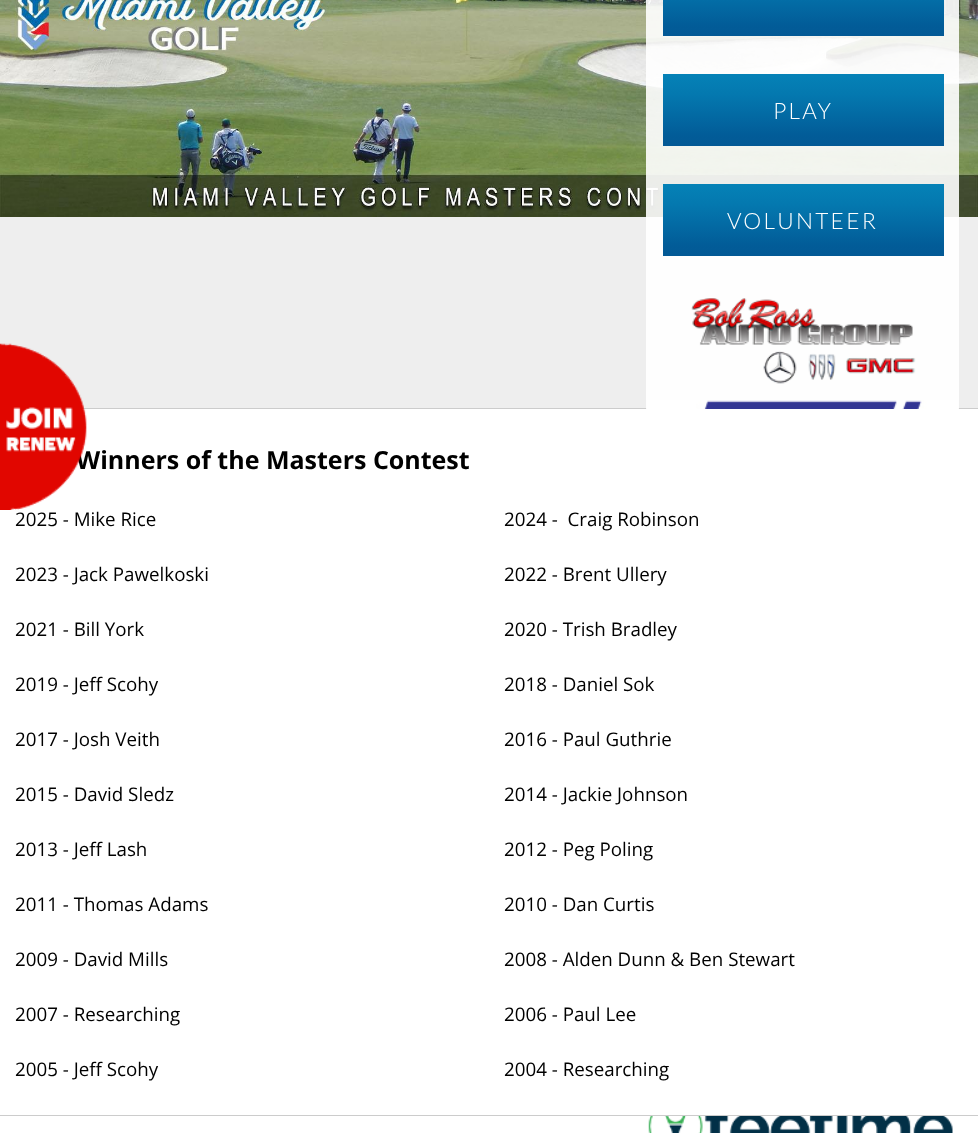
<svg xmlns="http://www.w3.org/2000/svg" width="978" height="1133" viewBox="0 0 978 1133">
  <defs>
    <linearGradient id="g1" gradientUnits="userSpaceOnUse" x1="803" y1="-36" x2="803" y2="36"><stop offset="0" stop-color="rgb(5,130,183)"/><stop offset="0.29" stop-color="rgb(4,120,175)"/><stop offset="0.85" stop-color="rgb(2,92,152)"/><stop offset="1" stop-color="rgb(3,89,149)"/></linearGradient>
    <linearGradient id="g2" gradientUnits="userSpaceOnUse" x1="803" y1="74" x2="803" y2="146"><stop offset="0" stop-color="rgb(5,130,183)"/><stop offset="0.29" stop-color="rgb(4,120,175)"/><stop offset="0.85" stop-color="rgb(2,92,152)"/><stop offset="1" stop-color="rgb(3,89,149)"/></linearGradient>
    <linearGradient id="g3" gradientUnits="userSpaceOnUse" x1="803" y1="184" x2="803" y2="256"><stop offset="0" stop-color="rgb(5,130,183)"/><stop offset="0.29" stop-color="rgb(4,120,175)"/><stop offset="0.85" stop-color="rgb(2,92,152)"/><stop offset="1" stop-color="rgb(3,89,149)"/></linearGradient>
  </defs>
  <rect width="100%" height="100%" fill="rgb(255,255,255)"/>
  <rect x="0" y="217" width="978" height="191" fill="rgb(238,238,238)"/>
  <rect x="82" y="408" width="896" height="1" fill="rgb(204,204,204)"/>
  <image x="0" y="0" width="978" height="217" href="pic1.png"/>
  <text x="76" y="469" font-family="Open Sans" font-size="25" font-weight="bold" fill="rgb(0,0,0)">Winners of the Masters Contest</text>
  <image x="0" y="343" width="87" height="167" href="pic2.png"/>
  <rect x="646" y="0" width="313" height="409" fill="rgba(255,255,255,0.9)"/>
  <rect x="663" y="0" width="281" height="36" fill="url(#g1)"/>
  <rect x="663" y="74" width="281" height="72" fill="url(#g2)"/>
  <text x="773" y="119" font-family="Lato" font-size="22.5" font-weight="300" letter-spacing="2.25" fill="rgb(255,255,255)">PLAY</text>
  <rect x="663" y="184" width="281" height="72" fill="url(#g3)"/>
  <text x="727" y="229" font-family="Lato" font-size="22.5" font-weight="300" letter-spacing="2.25" fill="rgb(255,255,255)">VOLUNTEER</text>
  <image x="691" y="298" width="225" height="86" href="pic3.png"/>
  <image x="647" y="400" width="311" height="9" href="pic4.png"/>
  <image x="648" y="1116" width="305" height="17" href="pic5.png"/>
  <g font-family="Open Sans" font-size="18.75" fill="rgb(0,0,0)">
    <text x="15" y="526">2025 - Mike Rice</text>
    <text x="504" y="526" xml:space="preserve">2024 -  Craig Robinson</text>
    <text x="15" y="581">2023 - Jack Pawelkoski</text>
    <text x="504" y="581">2022 - Brent Ullery</text>
    <text x="15" y="636">2021 - Bill York</text>
    <text x="504" y="636">2020 - Trish Bradley</text>
    <text x="15" y="691">2019 - Jeff Scohy</text>
    <text x="504" y="691">2018 - Daniel Sok</text>
    <text x="15" y="746">2017 - Josh Veith</text>
    <text x="504" y="746">2016 - Paul Guthrie</text>
    <text x="15" y="801">2015 - David Sledz</text>
    <text x="504" y="801">2014 - Jackie Johnson</text>
    <text x="15" y="856">2013 - Jeff Lash</text>
    <text x="504" y="856">2012 - Peg Poling</text>
    <text x="15" y="911">2011 - Thomas Adams</text>
    <text x="504" y="911">2010 - Dan Curtis</text>
    <text x="15" y="966">2009 - David Mills</text>
    <text x="504" y="966">2008 - Alden Dunn &amp; Ben Stewart</text>
    <text x="15" y="1021">2007 - Researching</text>
    <text x="504" y="1021">2006 - Paul Lee</text>
    <text x="15" y="1076">2005 - Jeff Scohy</text>
    <text x="504" y="1076">2004 - Researching</text>
  </g>
  <rect x="0" y="1115" width="978" height="1" fill="rgb(204,204,204)"/>
</svg>
